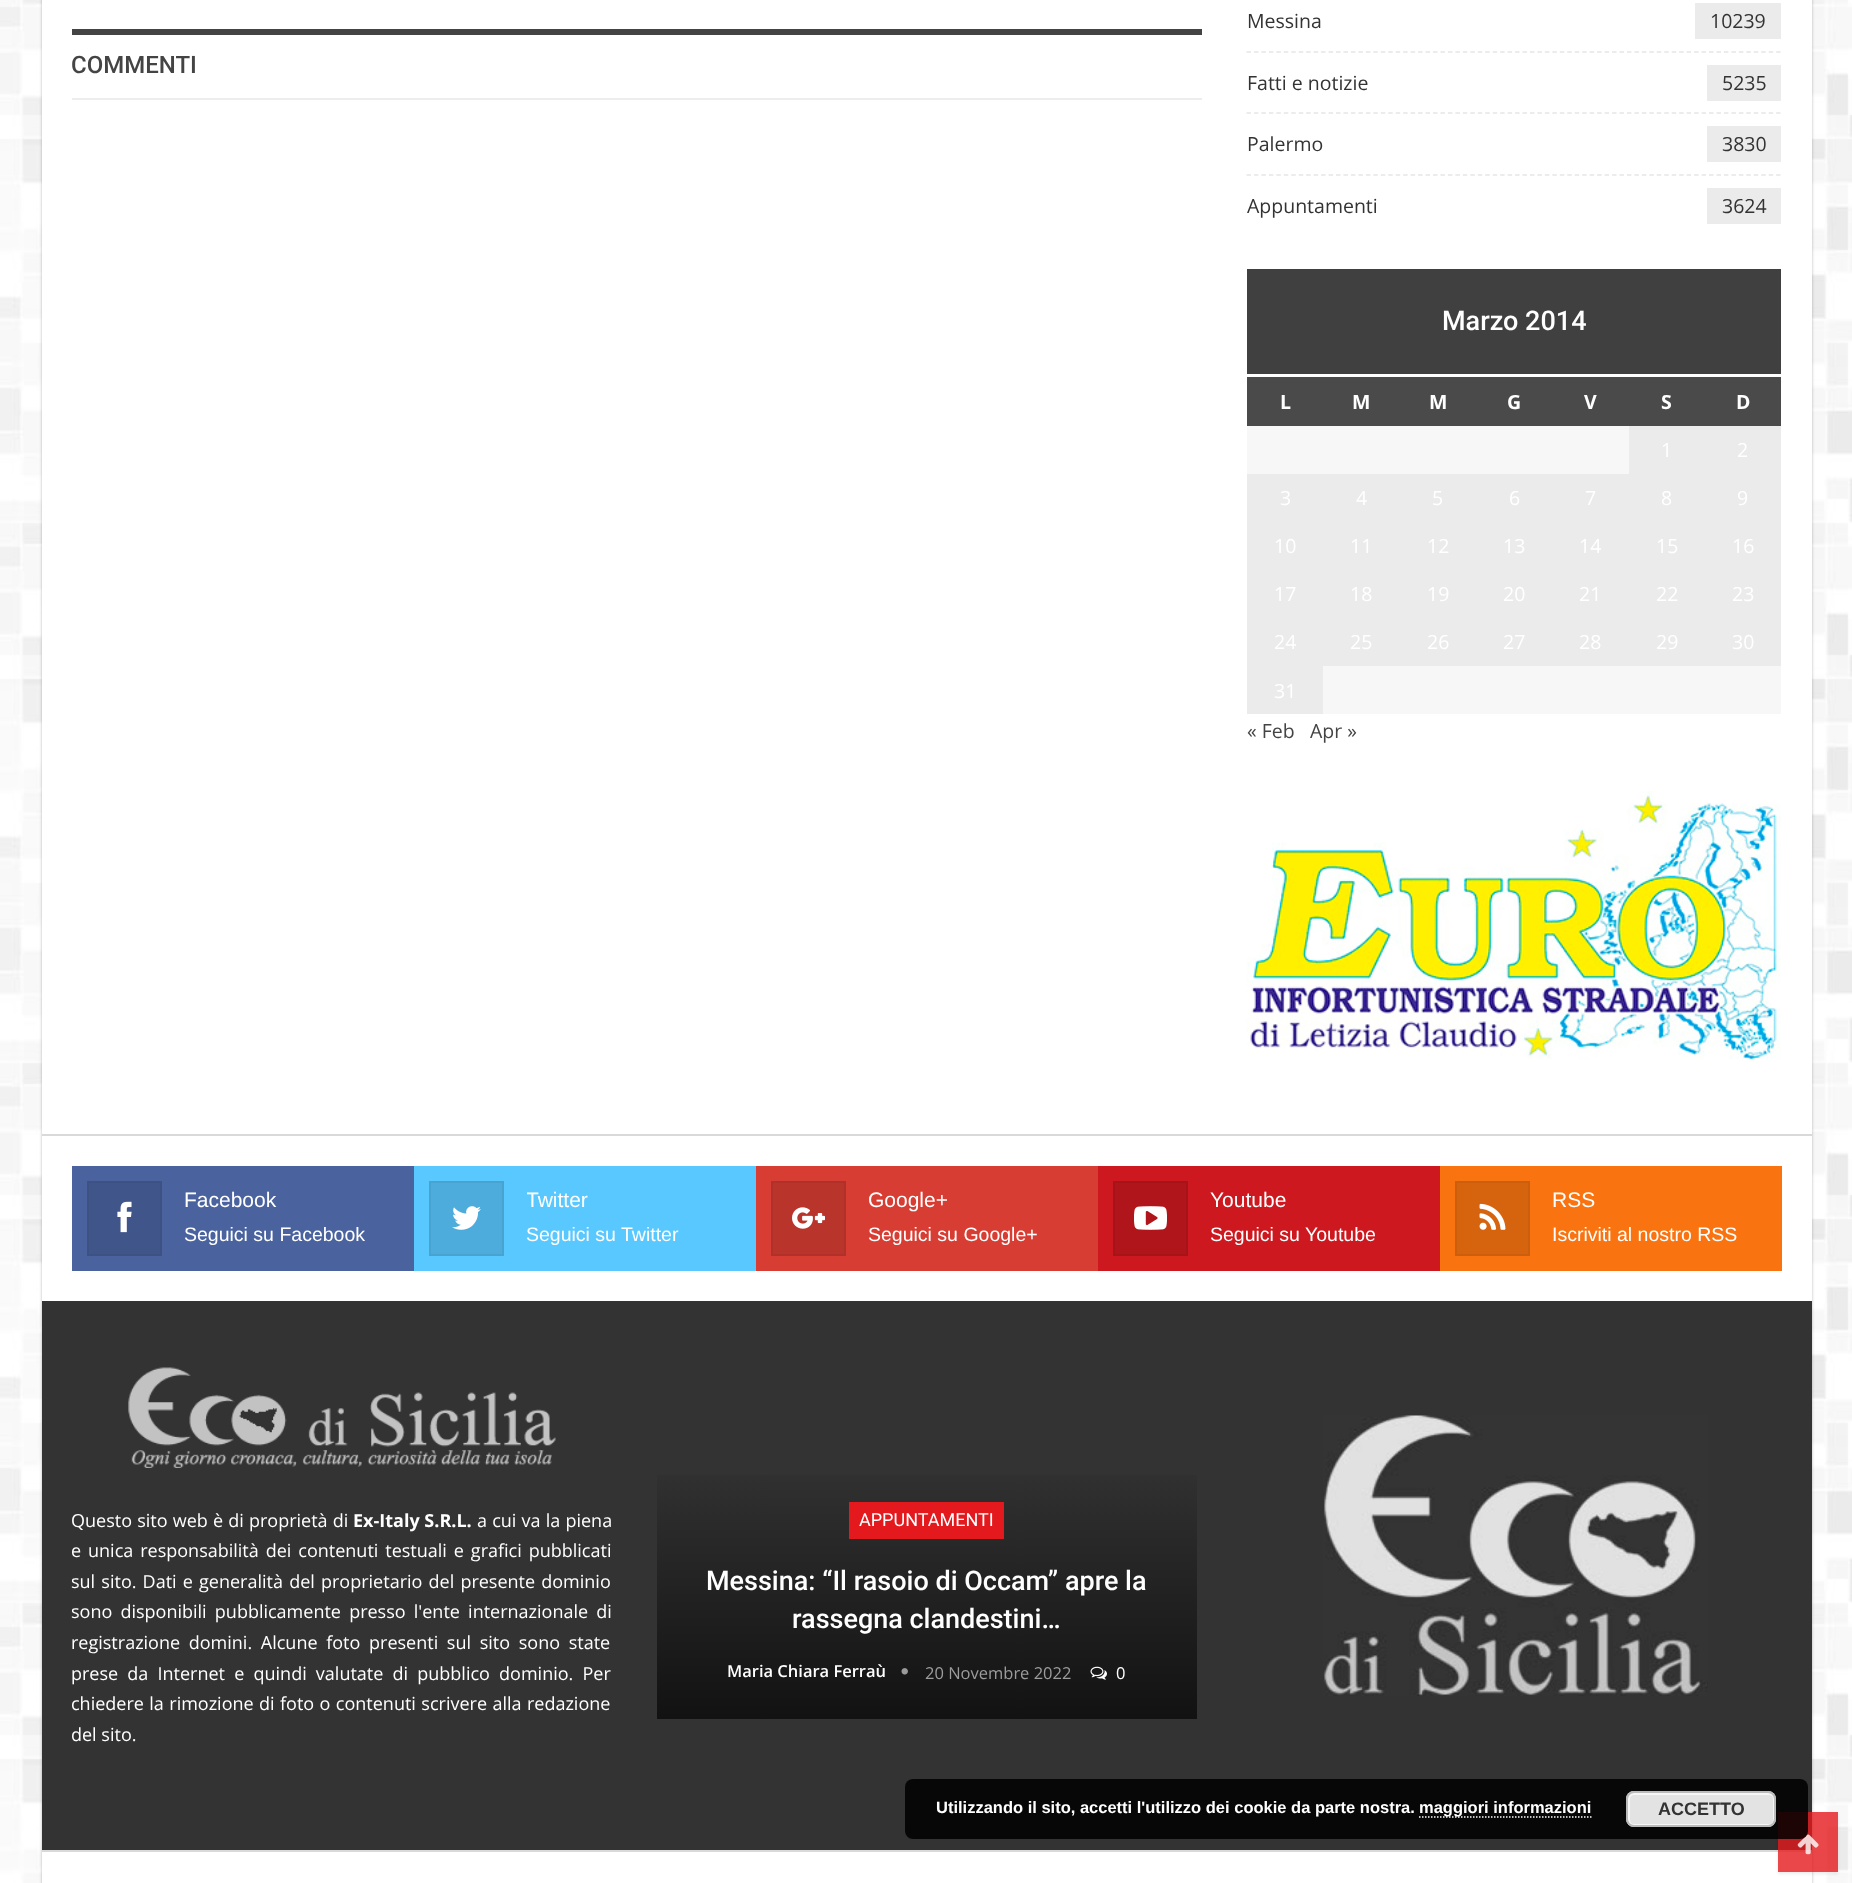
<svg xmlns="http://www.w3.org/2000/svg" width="1852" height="1883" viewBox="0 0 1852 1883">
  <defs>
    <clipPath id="clip1"><rect x="527" y="1184" width="214" height="34"/></clipPath>
    <clipPath id="clip2"><rect x="869" y="1184" width="214" height="34"/></clipPath>
    <linearGradient id="g1" gradientUnits="userSpaceOnUse" x1="927" y1="1455" x2="927" y2="1719"><stop offset="0" stop-color="rgb(51,51,51)"/><stop offset="1" stop-color="rgb(18,18,18)"/></linearGradient>
    <clipPath id="clip3"><path d="M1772 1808H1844V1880H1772ZM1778 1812H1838V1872H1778Z" clip-rule="evenodd"/></clipPath>
  </defs>
  <rect width="100%" height="100%" fill="rgb(255,255,255)"/>
  <image x="0" y="0" width="1852" height="1883" href="pic1.png"/>
  <rect x="42" y="-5" width="1770" height="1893" fill="rgba(0,0,0,0.27)" filter="blur(1.5px)"/>
  <rect x="42" y="0" width="1770" height="1134" fill="rgb(255,255,255)"/>
  <rect x="72" y="29" width="1130" height="6" fill="rgb(68,68,68)"/>
  <text x="71" y="73" font-family="Roboto" font-size="24" font-weight="500" fill="rgb(68,68,68)">COMMENTI</text>
  <rect x="72" y="98" width="1130" height="2" fill="rgb(237,237,237)"/>
  <path d="M1246.5 52H1780.5" fill="none" stroke="rgb(230,230,230)" stroke-width="1.5" stroke-dasharray="4.5 2.96"/>
  <text x="1247" y="28" font-family="Open Sans" font-size="19.5" fill="rgb(51,51,51)">Messina</text>
  <rect x="1695" y="3" width="86" height="36" fill="rgb(235,235,235)"/>
  <text x="1710" y="28" font-family="Open Sans" font-size="19.5" fill="rgb(51,51,51)">10239</text>
  <path d="M1246.5 113H1780.5" fill="none" stroke="rgb(230,230,230)" stroke-width="1.5" stroke-dasharray="4.5 2.96"/>
  <text x="1247" y="90" font-family="Open Sans" font-size="19.5" fill="rgb(51,51,51)">Fatti e notizie</text>
  <rect x="1707" y="65" width="74" height="36" fill="rgb(235,235,235)"/>
  <text x="1722" y="90" font-family="Open Sans" font-size="19.5" fill="rgb(51,51,51)">5235</text>
  <path d="M1246.5 175H1780.5" fill="none" stroke="rgb(230,230,230)" stroke-width="1.5" stroke-dasharray="4.5 2.96"/>
  <text x="1247" y="151" font-family="Open Sans" font-size="19.5" fill="rgb(51,51,51)">Palermo</text>
  <rect x="1707" y="126" width="74" height="36" fill="rgb(235,235,235)"/>
  <g font-family="Open Sans" font-size="19.5" fill="rgb(51,51,51)">
    <text x="1722" y="151">3830</text>
    <text x="1247" y="213">Appuntamenti</text>
  </g>
  <rect x="1707" y="188" width="74" height="36" fill="rgb(235,235,235)"/>
  <text x="1722" y="213" font-family="Open Sans" font-size="19.5" fill="rgb(51,51,51)">3624</text>
  <rect x="1247" y="269" width="534" height="105" fill="rgb(64,64,64)"/>
  <text x="1442" y="330" font-family="Roboto" font-size="27" font-weight="500" fill="rgb(255,255,255)">Marzo 2014</text>
  <rect x="1247" y="377" width="534" height="49" fill="rgb(74,74,74)"/>
  <g font-family="Open Sans" font-size="19.5" font-weight="bold" fill="rgb(255,255,255)">
    <text x="1280" y="409">L</text>
    <text x="1352" y="409">M</text>
    <text x="1429" y="409">M</text>
    <text x="1507" y="409">G</text>
    <text x="1584" y="409">V</text>
    <text x="1661" y="409">S</text>
    <text x="1736" y="409">D</text>
  </g>
  <rect x="1247" y="426" width="382" height="48" fill="rgb(247,247,247)"/>
  <rect x="1629" y="426" width="152" height="48" fill="rgb(235,235,235)"/>
  <g font-family="Open Sans" font-size="19.5" fill="rgb(255,255,255)">
    <text x="1661" y="457">1</text>
    <text x="1737" y="457">2</text>
  </g>
  <rect x="1247" y="474" width="534" height="48" fill="rgb(235,235,235)"/>
  <g font-family="Open Sans" font-size="19.5" fill="rgb(255,255,255)">
    <text x="1280" y="505">3</text>
    <text x="1356" y="505">4</text>
    <text x="1432" y="505">5</text>
    <text x="1509" y="505">6</text>
    <text x="1585" y="505">7</text>
    <text x="1661" y="505">8</text>
    <text x="1737" y="505">9</text>
  </g>
  <rect x="1247" y="522" width="534" height="48" fill="rgb(235,235,235)"/>
  <g font-family="Open Sans" font-size="19.5" fill="rgb(255,255,255)">
    <text x="1274" y="553">10</text>
    <text x="1350" y="553">11</text>
    <text x="1427" y="553">12</text>
    <text x="1503" y="553">13</text>
    <text x="1579" y="553">14</text>
    <text x="1656" y="553">15</text>
    <text x="1732" y="553">16</text>
  </g>
  <rect x="1247" y="570" width="534" height="48" fill="rgb(235,235,235)"/>
  <g font-family="Open Sans" font-size="19.5" fill="rgb(255,255,255)">
    <text x="1274" y="601">17</text>
    <text x="1350" y="601">18</text>
    <text x="1427" y="601">19</text>
    <text x="1503" y="601">20</text>
    <text x="1579" y="601">21</text>
    <text x="1656" y="601">22</text>
    <text x="1732" y="601">23</text>
  </g>
  <rect x="1247" y="618" width="534" height="48" fill="rgb(235,235,235)"/>
  <g font-family="Open Sans" font-size="19.5" fill="rgb(255,255,255)">
    <text x="1274" y="649">24</text>
    <text x="1350" y="649">25</text>
    <text x="1427" y="649">26</text>
    <text x="1503" y="649">27</text>
    <text x="1579" y="649">28</text>
    <text x="1656" y="649">29</text>
    <text x="1732" y="649">30</text>
  </g>
  <rect x="1247" y="666" width="76" height="48" fill="rgb(235,235,235)"/>
  <text x="1274" y="698" font-family="Open Sans" font-size="19.5" fill="rgb(255,255,255)">31</text>
  <rect x="1323" y="666" width="458" height="48" fill="rgb(247,247,247)"/>
  <g font-family="Open Sans" font-size="19.5" fill="rgb(68,68,68)">
    <text x="1247" y="738">« Feb</text>
    <text x="1310" y="738">Apr »</text>
  </g>
  <image x="1246" y="791" width="535" height="269" href="pic2.png"/>
  <rect x="42" y="1301" width="1770" height="549" fill="rgb(51,51,51)"/>
  <rect x="42" y="1136" width="1770" height="165" fill="rgb(255,255,255)"/>
  <rect x="42" y="1134" width="1770" height="2" fill="rgb(217,217,217)"/>
  <rect x="72" y="1166" width="342" height="105" fill="rgb(74,99,159)"/>
  <rect x="88" y="1182" width="73" height="73" fill="rgb(64,85,137)" stroke="rgb(61,81,130)" stroke-width="2"/>
  <image x="117" y="1201" width="15" height="32" href="pic3.png"/>
  <text x="184" y="1207" font-family="Liberation Sans" font-size="21" fill="rgb(255,255,255)">Facebook</text>
  <text x="184" y="1241" font-family="Liberation Sans" font-size="19.5" fill="rgb(255,255,255)">Seguici su Facebook</text>
  <rect x="414" y="1166" width="342" height="105" fill="rgb(89,200,255)"/>
  <rect x="430" y="1182" width="73" height="73" fill="rgb(77,172,219)" stroke="rgb(73,163,208)" stroke-width="2"/>
  <image x="452" y="1206" width="29" height="24" href="pic4.png"/>
  <g clip-path="url(#clip1)">
    <text x="526" y="1207" font-family="Liberation Sans" font-size="21" fill="rgb(255,255,255)">Twitter</text>
  </g>
  <text x="526" y="1241" font-family="Liberation Sans" font-size="19.5" fill="rgb(255,255,255)">Seguici su Twitter</text>
  <rect x="756" y="1166" width="342" height="105" fill="rgb(215,61,50)"/>
  <rect x="772" y="1182" width="73" height="73" fill="rgb(185,52,43)" stroke="rgb(176,49,41)" stroke-width="2"/>
  <image x="792" y="1207" width="33" height="22" href="pic5.png"/>
  <g clip-path="url(#clip2)">
    <text x="868" y="1207" font-family="Liberation Sans" font-size="21" fill="rgb(255,255,255)">Google+</text>
  </g>
  <text x="868" y="1241" font-family="Liberation Sans" font-size="19.5" fill="rgb(255,255,255)">Seguici su Google+</text>
  <rect x="1098" y="1166" width="342" height="105" fill="rgb(204,24,30)"/>
  <rect x="1114" y="1182" width="73" height="73" fill="rgb(175,21,26)" stroke="rgb(166,20,25)" stroke-width="2"/>
  <image x="1134" y="1206" width="33" height="24" href="pic6.png"/>
  <text x="1210" y="1207" font-family="Liberation Sans" font-size="21" fill="rgb(255,255,255)">Youtube</text>
  <text x="1210" y="1241" font-family="Liberation Sans" font-size="19.5" fill="rgb(255,255,255)">Seguici su Youtube</text>
  <rect x="1440" y="1166" width="342" height="105" fill="rgb(249,116,16)"/>
  <rect x="1456" y="1182" width="73" height="73" fill="rgb(214,100,14)" stroke="rgb(203,95,13)" stroke-width="2"/>
  <image x="1479" y="1203" width="27" height="27" href="pic7.png"/>
  <text x="1552" y="1207" font-family="Liberation Sans" font-size="21" fill="rgb(255,255,255)">RSS</text>
  <text x="1552" y="1241" font-family="Liberation Sans" font-size="19.5" fill="rgb(255,255,255)">Iscriviti al nostro RSS</text>
  <image x="128" y="1367" width="428" height="101" href="pic8.png"/>
  <text x="71" y="1527" word-spacing="0.5" font-family="Open Sans" font-size="18" fill="rgb(255,255,255)">Questo sito web è di proprietà di</text>
  <text x="353" y="1527" font-family="Open Sans" font-size="18" font-weight="bold" fill="rgb(255,255,255)">Ex-Italy S.R.L.</text>
  <g font-family="Open Sans" font-size="18" fill="rgb(255,255,255)">
    <text x="477" y="1527" word-spacing="0.5">a cui va la piena</text>
    <text>
      <tspan x="71" y="1557" word-spacing="2.25">e unica responsabilità dei contenuti testuali e grafici pubblicati</tspan>
      <tspan x="71" y="1588" word-spacing="1.5">sul sito. Dati e generalità del proprietario del presente dominio</tspan>
      <tspan x="71" y="1618" word-spacing="3.5">sono disponibili pubblicamente presso l'ente internazionale di</tspan>
      <tspan x="71" y="1649" word-spacing="4">registrazione domini. Alcune foto presenti sul sito sono state</tspan>
      <tspan x="71" y="1680" word-spacing="4.5">prese da Internet e quindi valutate di pubblico dominio. Per</tspan>
      <tspan x="71" y="1710" word-spacing="0.75">chiedere la rimozione di foto o contenuti scrivere alla redazione</tspan>
      <tspan x="71" y="1741">del sito.</tspan>
    </text>
  </g>
  <rect x="657" y="1475" width="540" height="244" fill="url(#g1)"/>
  <rect x="849" y="1502" width="155" height="37" fill="rgb(227,25,29)"/>
  <text x="859" y="1526" font-family="Roboto" font-size="18" fill="rgb(255,255,255)">APPUNTAMENTI</text>
  <g font-family="Roboto" font-size="27" font-weight="500" fill="rgb(255,255,255)">
    <text x="706" y="1590">Messina: “Il rasoio di Occam” apre la</text>
    <text x="792" y="1628">rassegna clandestini…</text>
  </g>
  <text x="727" y="1677" font-family="Open Sans" font-size="16.5" font-weight="600" fill="rgb(255,255,255)">Maria Chiara Ferraù</text>
  <image x="901" y="1668" width="7" height="7" href="pic9.png"/>
  <text x="925" y="1679" font-family="Open Sans" font-size="16.5" fill="rgb(156,156,156)">20 Novembre 2022</text>
  <image x="1090" y="1666" width="17" height="14" href="pic10.png"/>
  <text x="1116" y="1679" font-family="Open Sans" font-size="16.5" fill="rgb(255,255,255)">0</text>
  <image x="1323" y="1415" width="385" height="281" href="pic11.png"/>
  <rect x="42" y="1852" width="1770" height="31" fill="rgb(255,255,255)"/>
  <rect x="42" y="1850" width="1770" height="2" fill="rgb(217,217,217)"/>
  <g clip-path="url(#clip3)">
    <rect x="1778" y="1814" width="60" height="60" fill="rgba(0,0,0,0.07)" filter="blur(1.5px)"/>
  </g>
  <rect x="1778" y="1812" width="60" height="60" fill="rgba(227,25,29,0.8)"/>
  <image x="1797" y="1834" width="22" height="21" href="pic12.png"/>
  <rect x="905" y="1779" width="903" height="60" rx="8" fill="rgba(0,0,0,0.85)"/>
  <text x="936" y="1813" font-family="Liberation Sans" font-size="16.5" font-weight="bold" fill="rgb(255,255,255)">Utilizzando il sito, accetti l'utilizzo dei cookie da parte nostra.</text>
  <path d="M1419 1817H1591.5" fill="none" stroke="rgb(255,255,255)" stroke-width="1.5" stroke-dasharray="1.5 1.5"/>
  <text x="1419" y="1813" font-family="Liberation Sans" font-size="16.5" font-weight="bold" fill="rgb(255,255,255)">maggiori informazioni</text>
  <rect x="1626" y="1791" width="150" height="36" rx="8" fill="rgb(227,227,227)"/>
  <rect x="1629" y="1794" width="145" height="31" rx="5" fill="none" stroke="rgb(246,246,246)" stroke-width="2"/>
  <rect x="1627" y="1792" width="148" height="34" rx="7" fill="none" stroke="rgb(187,187,187)" stroke-width="2"/>
  <text x="1658" y="1815" font-family="Liberation Sans" font-size="18" font-weight="bold" fill="rgb(51,51,51)">ACCETTO</text>
</svg>
